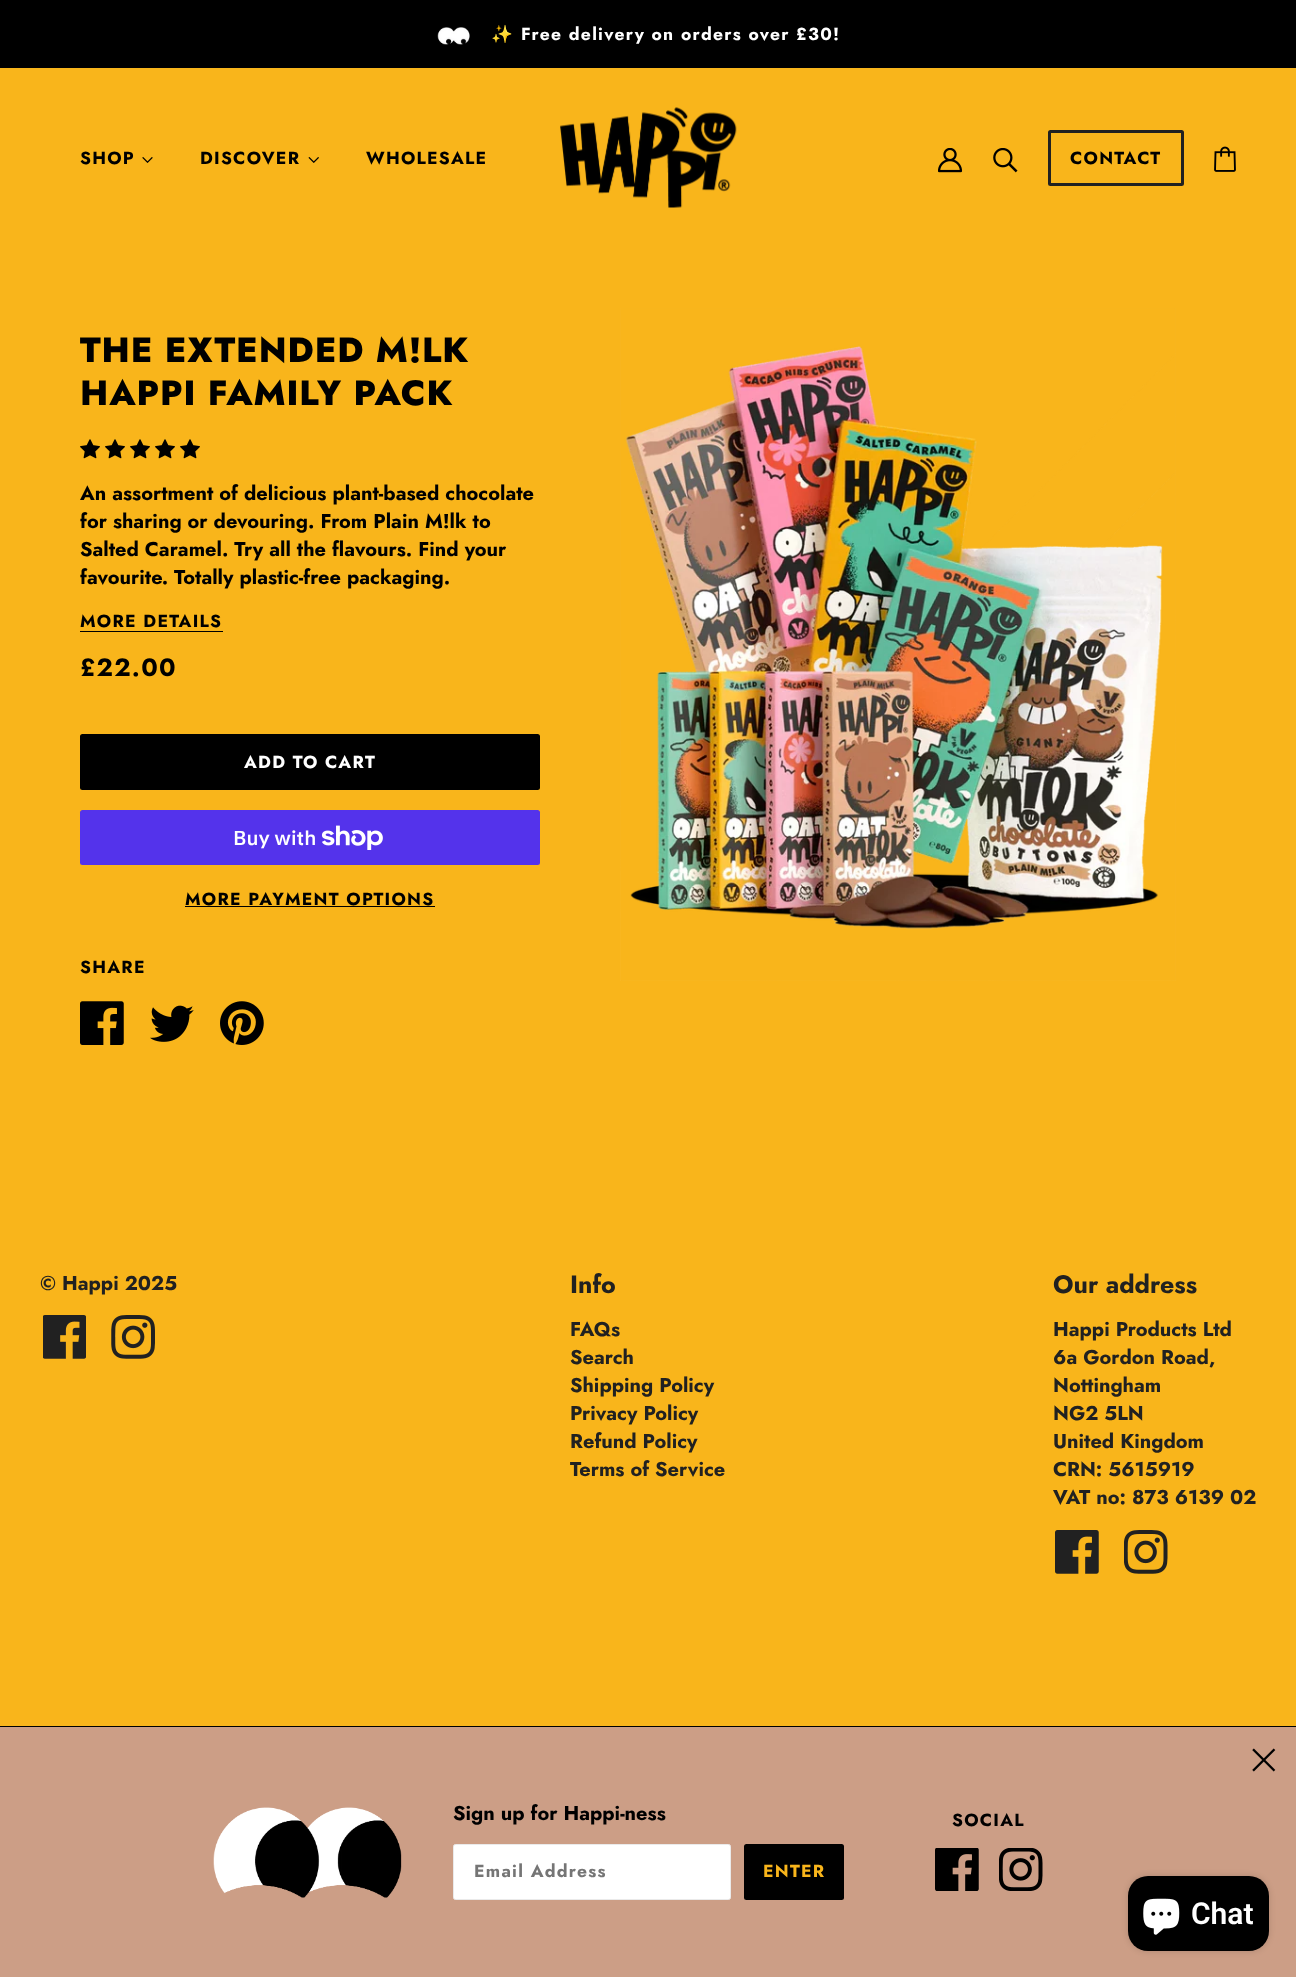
<svg xmlns="http://www.w3.org/2000/svg" width="1296" height="1977" viewBox="0 0 1296 1977">
  <rect width="100%" height="100%" fill="rgb(249,181,27)"/>
  <rect x="0" y="0" width="1296" height="68" fill="rgb(0,0,0)"/>
  <image x="437" y="27" width="33" height="18" href="pic1.png"/>
  <text x="491" y="40" font-family="Noto Color Emoji" font-size="17.5" font-weight="bold" letter-spacing="1.25" fill="rgb(255,255,255)">✨</text>
  <text x="521" y="40" font-family="Jost" font-size="17.5" font-weight="bold" letter-spacing="1.25" fill="rgb(255,255,255)">Free delivery on orders over £30!</text>
  <text x="80" y="164" font-family="Jost" font-size="17.5" font-weight="bold" letter-spacing="1.25" fill="rgb(0,0,0)">SHOP</text>
  <image x="142" y="157" width="11" height="6" href="pic2.png"/>
  <text x="200" y="164" font-family="Jost" font-size="17.5" font-weight="bold" letter-spacing="1.25" fill="rgb(0,0,0)">DISCOVER</text>
  <image x="308" y="157" width="11" height="6" href="pic3.png"/>
  <text x="366" y="164" font-family="Jost" font-size="17.5" font-weight="bold" letter-spacing="1.25" fill="rgb(0,0,0)">WHOLESALE</text>
  <image x="560" y="107" width="177" height="101" href="pic4.png"/>
  <image x="938" y="148" width="25" height="25" href="pic5.png"/>
  <image x="993" y="148" width="25" height="25" href="pic6.png"/>
  <rect x="1049.5" y="131.5" width="133" height="53" rx="1" fill="none" stroke="rgb(33,33,33)" stroke-width="3"/>
  <text x="1070" y="164" font-family="Jost" font-size="17.5" font-weight="bold" letter-spacing="1.25" fill="rgb(0,0,0)">CONTACT</text>
  <image x="1214" y="146" width="22" height="26" href="pic7.png"/>
  <g font-family="Jost" font-size="35" font-weight="800" letter-spacing="0.9" fill="rgb(0,0,0)">
    <text>
      <tspan x="80" y="362">THE EXTENDED M!LK</tspan>
      <tspan x="80" y="405">HAPPI FAMILY PACK</tspan>
    </text>
  </g>
  <image x="80" y="439" width="20" height="20" href="pic8.png"/>
  <image x="105" y="439" width="20" height="20" href="pic8.png"/>
  <image x="130" y="439" width="20" height="20" href="pic8.png"/>
  <image x="155" y="439" width="20" height="20" href="pic8.png"/>
  <image x="180" y="439" width="20" height="20" href="pic8.png"/>
  <g font-family="Jost" font-size="20" font-weight="bold" fill="rgb(0,0,0)">
    <text>
      <tspan x="80" y="500">An assortment of delicious plant-based chocolate</tspan>
      <tspan x="80" y="528">for sharing or devouring. From Plain M!lk to</tspan>
      <tspan x="80" y="556">Salted Caramel. Try all the flavours. Find your</tspan>
      <tspan x="80" y="584">favourite. Totally plastic-free packaging.</tspan>
    </text>
  </g>
  <text x="80" y="627" font-family="Jost" font-size="17.5" font-weight="bold" letter-spacing="1.25" fill="rgb(0,0,0)">MORE DETAILS</text>
  <rect x="80" y="631" width="143" height="1" fill="rgb(0,0,0)"/>
  <text x="80" y="676" font-family="Jost" font-size="25" font-weight="bold" letter-spacing="1.25" fill="rgb(0,0,0)">£22.00</text>
  <rect x="81.5" y="735.5" width="457" height="53" rx="1" fill="rgb(0,0,0)" stroke="rgb(0,0,0)" stroke-width="3"/>
  <text x="244" y="768" font-family="Jost" font-size="17.5" font-weight="bold" letter-spacing="1.25" fill="rgb(255,255,255)">ADD TO CART</text>
  <rect x="80" y="810" width="460" height="55" rx="2.5" fill="rgb(84,51,235)"/>
  <text x="233" y="845" font-family="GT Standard" font-size="20" font-weight="600" fill="rgb(255,255,255)">Buy with</text>
  <image x="321" y="825" width="62" height="25" href="pic9.png"/>
  <text x="185" y="905" font-family="Jost" font-size="17.5" font-weight="bold" letter-spacing="1.25" fill="rgb(0,0,0)">MORE PAYMENT OPTIONS</text>
  <rect x="185" y="906" width="250" height="1" fill="rgb(0,0,0)"/>
  <text x="80" y="973" font-family="Jost" font-size="17.5" font-weight="bold" letter-spacing="1.25" fill="rgb(0,0,0)">SHARE</text>
  <image x="80" y="1001" width="44" height="44" href="pic10.png"/>
  <image x="150" y="1005" width="44" height="37" href="pic11.png"/>
  <image x="220" y="1001" width="44" height="44" href="pic12.png"/>
  <image x="620" y="308" width="556" height="673" href="pic13.png"/>
  <text x="40" y="1290" font-family="Jost" font-size="20" font-weight="bold" fill="rgb(33,33,33)">© Happi 2025</text>
  <image x="43" y="1315" width="43" height="44" href="pic14.png"/>
  <image x="111" y="1315" width="44" height="44" href="pic15.png"/>
  <text x="570" y="1293" font-family="Jost" font-size="25" font-weight="bold" fill="rgb(33,33,33)">Info</text>
  <g font-family="Jost" font-size="20" font-weight="bold" fill="rgb(33,33,33)">
    <text>
      <tspan x="570" y="1336">FAQs</tspan>
      <tspan x="570" y="1364">Search</tspan>
      <tspan x="570" y="1392">Shipping Policy</tspan>
      <tspan x="570" y="1420">Privacy Policy</tspan>
      <tspan x="570" y="1448">Refund Policy</tspan>
      <tspan x="570" y="1476">Terms of Service</tspan>
    </text>
  </g>
  <text x="1053" y="1293" font-family="Jost" font-size="25" font-weight="bold" fill="rgb(33,33,33)">Our address</text>
  <g font-family="Jost" font-size="20" font-weight="bold" fill="rgb(33,33,33)">
    <text>
      <tspan x="1053" y="1336">Happi Products Ltd</tspan>
      <tspan x="1053" y="1364">6a Gordon Road,</tspan>
      <tspan x="1053" y="1392">Nottingham</tspan>
      <tspan x="1053" y="1420">NG2 5LN</tspan>
      <tspan x="1053" y="1448">United Kingdom</tspan>
      <tspan x="1053" y="1476">CRN: 5615919</tspan>
      <tspan x="1053" y="1504">VAT no: 873 6139 02</tspan>
    </text>
  </g>
  <image x="1055" y="1530" width="44" height="44" href="pic16.png"/>
  <image x="1124" y="1530" width="44" height="44" href="pic17.png"/>
  <rect x="0" y="1727" width="1296" height="250" fill="rgb(204,158,134)"/>
  <rect x="0" y="1726" width="1296" height="1" fill="rgb(0,0,0)"/>
  <image x="1252" y="1748" width="24" height="24" href="pic18.png"/>
  <image x="213" y="1807" width="189" height="91" href="pic19.png"/>
  <text x="453" y="1820" font-family="Jost" font-size="20" font-weight="bold" fill="rgb(0,0,0)">Sign up for Happi-ness</text>
  <rect x="453.5" y="1844.5" width="277" height="55" rx="2" fill="rgb(255,255,255)" stroke="rgb(234,234,234)"/>
  <text x="474" y="1877" font-family="Jost" font-size="17.5" font-weight="bold" letter-spacing="1.25" fill="rgb(117,117,117)">Email Address</text>
  <rect x="744" y="1844" width="100" height="56" rx="2.5" fill="rgb(0,0,0)"/>
  <text x="763" y="1877" font-family="Jost" font-size="17.5" font-weight="bold" letter-spacing="1.25" fill="rgb(249,181,27)">ENTER</text>
  <text x="952" y="1826" font-family="Jost" font-size="17.5" font-weight="bold" letter-spacing="1.25" fill="rgb(0,0,0)">SOCIAL</text>
  <image x="935" y="1848" width="44" height="43" href="pic20.png"/>
  <image x="999" y="1848" width="44" height="43" href="pic21.png"/>
  <rect x="1128" y="1876" width="141" height="75" rx="20" fill="rgba(0,0,0,0.15)" filter="blur(3px)"/>
  <rect x="1128" y="1876" width="141" height="75" rx="20" fill="rgb(0,0,0)"/>
  <image x="1143" y="1898" width="37" height="37" href="pic22.png"/>
  <text x="1191" y="1924" font-family="Roboto" font-size="30" font-weight="600" fill="rgb(255,255,255)">Chat</text>
</svg>
